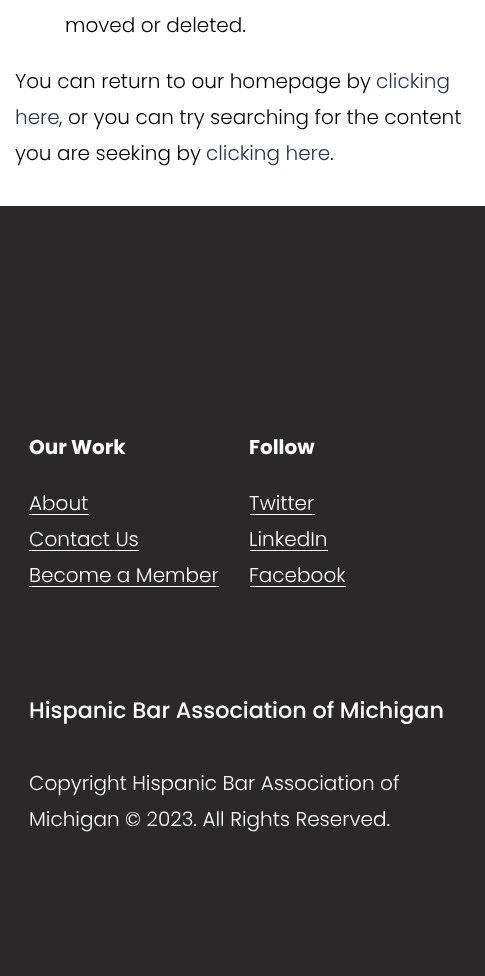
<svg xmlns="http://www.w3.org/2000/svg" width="485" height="976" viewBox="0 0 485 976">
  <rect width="100%" height="100%" fill="rgb(255,255,255)"/>
  <g font-family="Poppins" font-size="20" font-weight="300" fill="rgb(0,0,0)">
    <text x="65" y="32">moved or deleted.</text>
    <text x="15" y="88">You can return to our homepage by</text>
  </g>
  <g font-family="Poppins" font-size="20" font-weight="300" fill="rgb(37,53,81)">
    <text x="376" y="88">clicking</text>
    <text x="15" y="124">here</text>
  </g>
  <g font-family="Poppins" font-size="20" font-weight="300" fill="rgb(0,0,0)">
    <text x="59" y="124">, or you can try searching for the content</text>
    <text x="15" y="160">you are seeking by</text>
  </g>
  <text x="206" y="160" font-family="Poppins" font-size="20" font-weight="300" fill="rgb(37,53,81)">clicking here</text>
  <text x="330" y="160" font-family="Poppins" font-size="20" font-weight="300" fill="rgb(0,0,0)">.</text>
  <rect x="0" y="206" width="485" height="770" fill="rgb(42,40,41)"/>
  <text x="29" y="454" font-family="Poppins" font-size="20" font-weight="bold" fill="rgb(255,255,255)">Our Work</text>
  <text x="29" y="510" font-family="Poppins" font-size="20" font-weight="300" fill="rgb(255,255,255)">About</text>
  <rect x="29" y="514" width="60" height="1" fill="rgb(255,255,255)"/>
  <text x="29" y="546" font-family="Poppins" font-size="20" font-weight="300" fill="rgb(255,255,255)">Contact Us</text>
  <rect x="29" y="550" width="110" height="1" fill="rgb(255,255,255)"/>
  <text x="29" y="582" font-family="Poppins" font-size="20" font-weight="300" fill="rgb(255,255,255)">Become a Member</text>
  <rect x="29" y="586" width="190" height="1" fill="rgb(255,255,255)"/>
  <text x="249" y="454" font-family="Poppins" font-size="20" font-weight="bold" fill="rgb(255,255,255)">Follow</text>
  <text x="249" y="510" font-family="Poppins" font-size="20" font-weight="300" fill="rgb(255,255,255)">Twitter</text>
  <rect x="250" y="514" width="65" height="1" fill="rgb(255,255,255)"/>
  <text x="249" y="546" font-family="Poppins" font-size="20" font-weight="300" fill="rgb(255,255,255)">LinkedIn</text>
  <rect x="250" y="550" width="78" height="1" fill="rgb(255,255,255)"/>
  <text x="249" y="582" font-family="Poppins" font-size="20" font-weight="300" fill="rgb(255,255,255)">Facebook</text>
  <rect x="250" y="586" width="96" height="1" fill="rgb(255,255,255)"/>
  <text x="29" y="718" font-family="Poppins" font-size="22.3" font-weight="500" fill="rgb(255,255,255)">Hispanic Bar Association of Michigan</text>
  <g font-family="Poppins" font-size="20" font-weight="300" fill="rgb(255,255,255)">
    <text>
      <tspan x="29" y="790">Copyright Hispanic Bar Association of</tspan>
      <tspan x="29" y="826">Michigan © 2023. All Rights Reserved.</tspan>
    </text>
  </g>
</svg>
